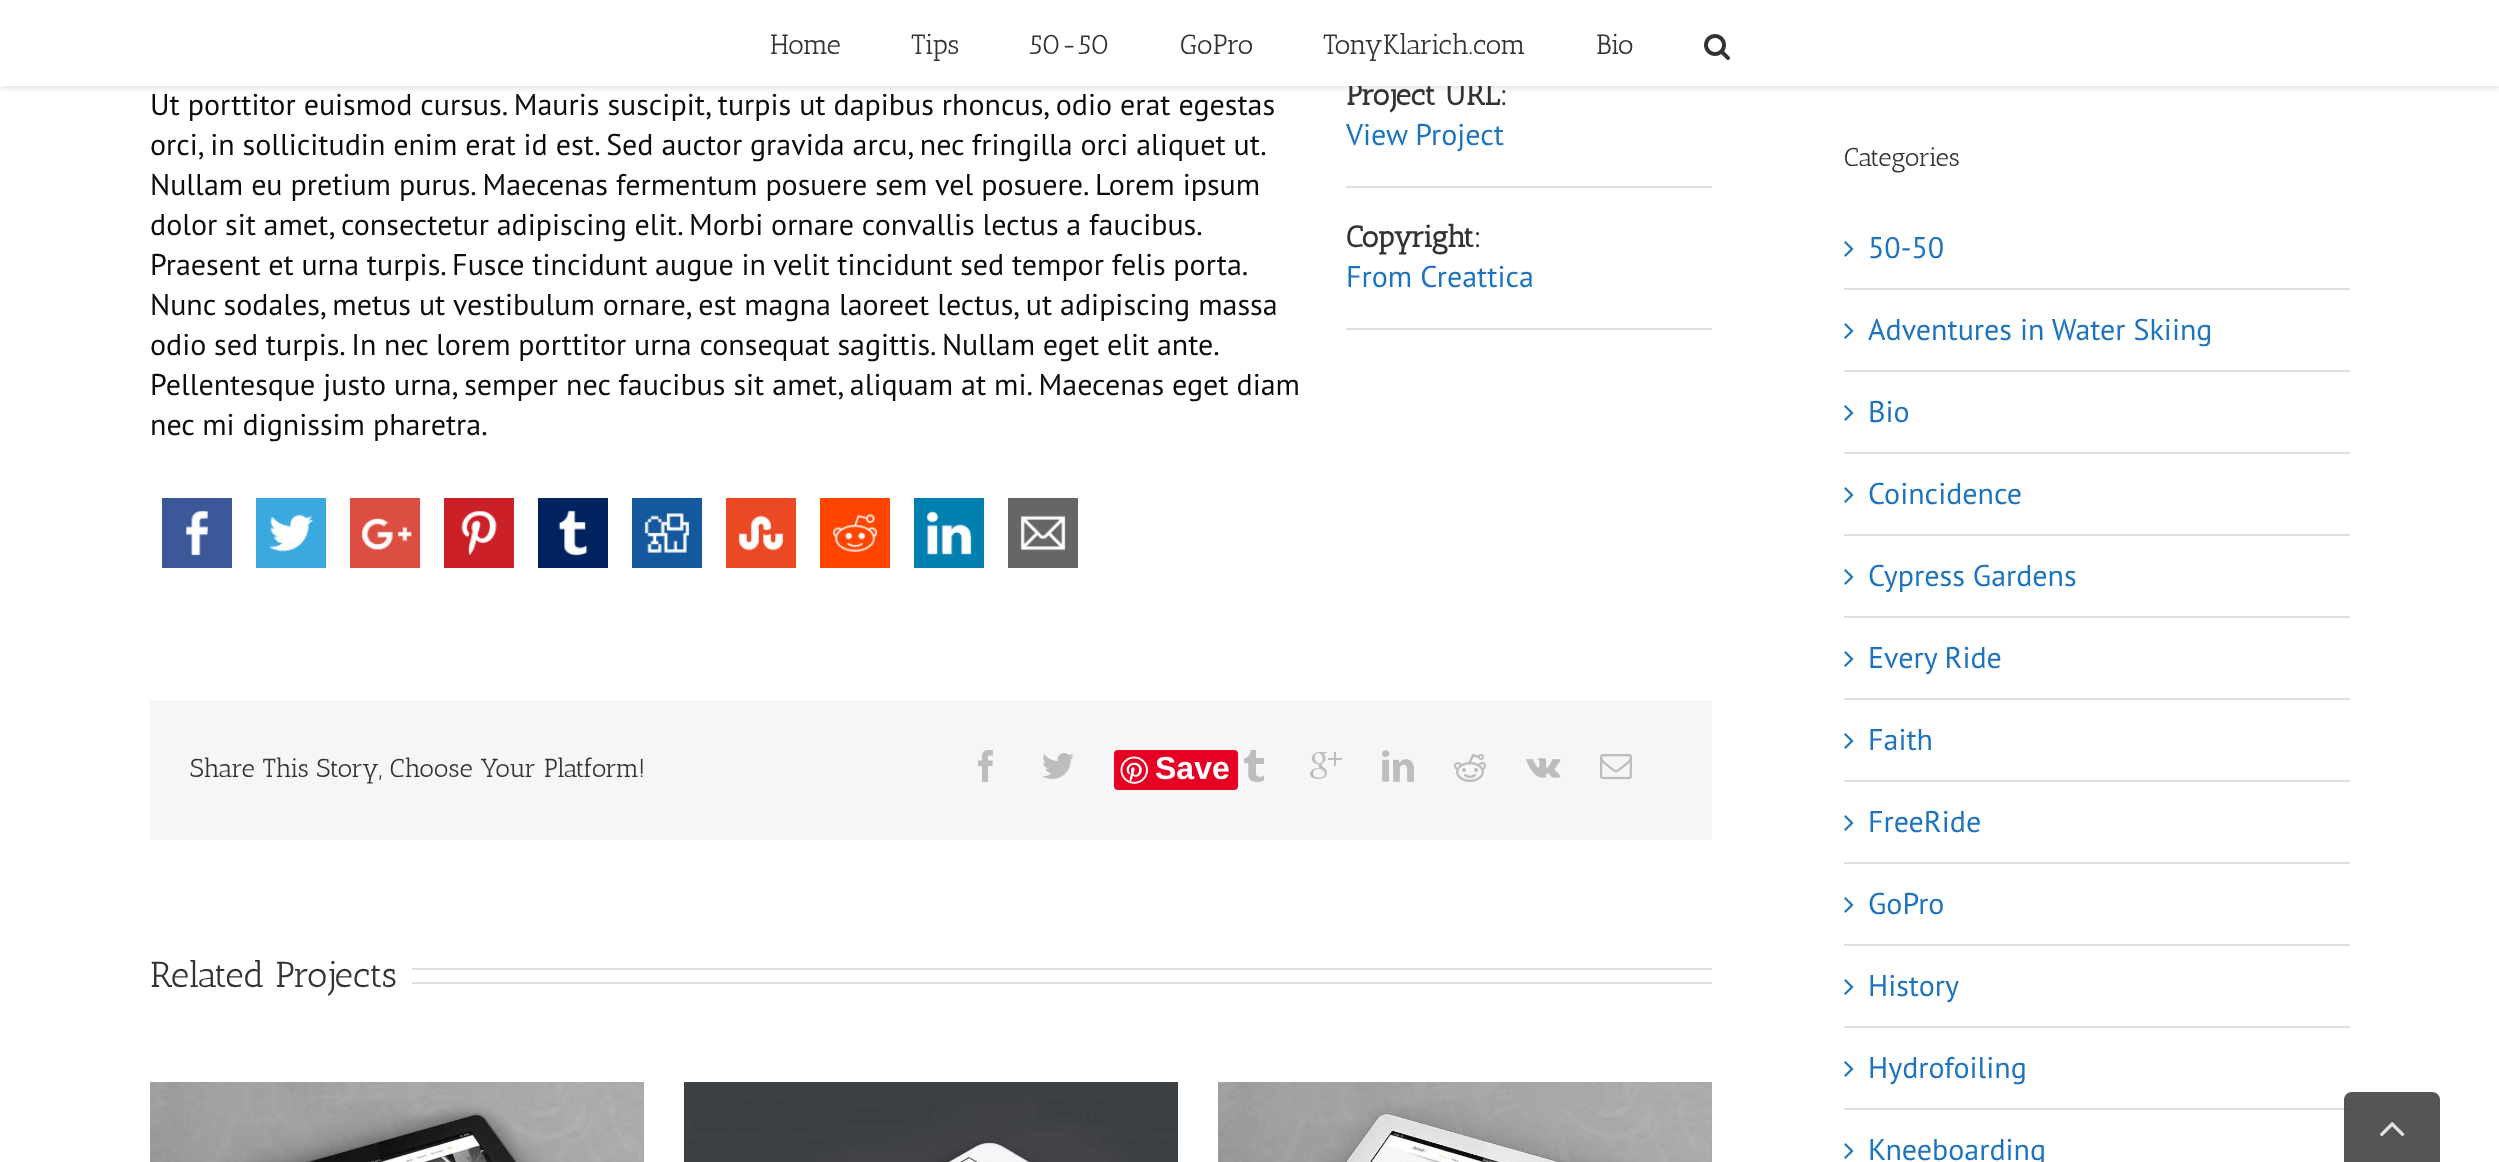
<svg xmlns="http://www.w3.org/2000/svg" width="2499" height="1162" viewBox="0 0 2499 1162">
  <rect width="100%" height="100%" fill="rgb(255,255,255)"/>
  <rect x="0" y="2" width="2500" height="86" fill="rgba(0,0,0,0.12)" filter="blur(3px)"/>
  <text x="1346" y="105" font-family="Antic Slab" font-size="30" font-weight="bold" fill="rgb(51,51,51)">Project URL:</text>
  <rect x="0" y="0" width="2499" height="86" fill="rgb(255,255,255)"/>
  <g font-family="Antic Slab" font-size="28" fill="rgb(51,51,51)">
    <text x="770" y="54">Home</text>
    <text x="911" y="54">Tips</text>
    <text x="1029" y="54">50-50</text>
    <text x="1180" y="54">GoPro</text>
    <text x="1323" y="54">TonyKlarich.com</text>
    <text x="1596" y="54">Bio</text>
  </g>
  <image x="1704" y="34" width="26" height="26" href="pic1.png"/>
  <g font-family="PT Sans" font-size="30" fill="rgb(12,12,12)">
    <text>
      <tspan x="150" y="115">Ut porttitor euismod cursus. Mauris suscipit, turpis ut dapibus rhoncus, odio erat egestas</tspan>
      <tspan x="150" y="155" word-spacing="-0.1">orci, in sollicitudin enim erat id est. Sed auctor gravida arcu, nec fringilla orci aliquet ut.</tspan>
      <tspan x="150" y="195">Nullam eu pretium purus. Maecenas fermentum posuere sem vel posuere. Lorem ipsum</tspan>
      <tspan x="150" y="235" word-spacing="-0.25">dolor sit amet, consectetur adipiscing elit. Morbi ornare convallis lectus a faucibus.</tspan>
      <tspan x="150" y="275" word-spacing="-0.25">Praesent et urna turpis. Fusce tincidunt augue in velit tincidunt sed tempor felis porta.</tspan>
      <tspan x="150" y="315">Nunc sodales, metus ut vestibulum ornare, est magna laoreet lectus, ut adipiscing massa</tspan>
      <tspan x="150" y="355" word-spacing="-0.25">odio sed turpis. In nec lorem porttitor urna consequat sagittis. Nullam eget elit ante.</tspan>
      <tspan x="150" y="395">Pellentesque justo urna, semper nec faucibus sit amet, aliquam at mi. Maecenas eget diam</tspan>
      <tspan x="150" y="435">nec mi dignissim pharetra.</tspan>
    </text>
  </g>
  <image x="162" y="498" width="70" height="70" href="pic2.png"/>
  <image x="256" y="498" width="70" height="70" href="pic3.png"/>
  <image x="350" y="498" width="70" height="70" href="pic4.png"/>
  <image x="444" y="498" width="70" height="70" href="pic5.png"/>
  <image x="538" y="498" width="70" height="70" href="pic6.png"/>
  <image x="632" y="498" width="70" height="70" href="pic7.png"/>
  <image x="726" y="498" width="70" height="70" href="pic8.png"/>
  <image x="820" y="498" width="70" height="70" href="pic9.png"/>
  <image x="914" y="498" width="70" height="70" href="pic10.png"/>
  <image x="1008" y="498" width="70" height="70" href="pic11.png"/>
  <rect x="1346" y="186" width="366" height="2" fill="rgb(224,222,222)"/>
  <text x="1346" y="145" font-family="PT Sans" font-size="30" fill="rgb(30,115,190)">View Project</text>
  <rect x="1346" y="328" width="366" height="2" fill="rgb(224,222,222)"/>
  <text x="1346" y="247" font-family="Antic Slab" font-size="30" font-weight="bold" fill="rgb(51,51,51)">Copyright:</text>
  <text x="1346" y="287" font-family="PT Sans" font-size="30" fill="rgb(30,115,190)">From Creattica</text>
  <rect x="150" y="700" width="1562" height="140" fill="rgb(246,246,246)"/>
  <text x="190" y="777" font-family="Antic Slab" font-size="26" fill="rgb(51,51,51)">Share This Story, Choose Your Platform!</text>
  <image x="978" y="750" width="15" height="32" href="pic12.png"/>
  <image x="1042" y="753" width="32" height="26" href="pic13.png"/>
  <rect x="1114" y="750" width="124" height="40" rx="4" fill="rgb(230,0,35)"/>
  <image x="1120" y="756" width="28" height="28" href="pic14.png"/>
  <text x="1155" y="779" font-family="Liberation Sans" font-size="32" font-weight="bold" fill="rgb(255,255,255)">Save</text>
  <image x="1244" y="750" width="20" height="32" href="pic15.png"/>
  <image x="1310" y="752" width="32" height="27" href="pic16.png"/>
  <image x="1382" y="750" width="32" height="32" href="pic17.png"/>
  <image x="1454" y="754" width="32" height="28" href="pic18.png"/>
  <image x="1526" y="758" width="35" height="20" href="pic19.png"/>
  <image x="1600" y="754" width="32" height="26" href="pic20.png"/>
  <text x="150" y="987" font-family="Antic Slab" font-size="36" fill="rgb(51,51,51)">Related Projects</text>
  <rect x="412" y="968" width="1300" height="2" fill="rgb(224,222,222)"/>
  <rect x="412" y="982" width="1300" height="2" fill="rgb(224,222,222)"/>
  <image x="150" y="1082" width="494" height="80" href="pic21.png"/>
  <image x="684" y="1082" width="494" height="80" href="pic22.png"/>
  <image x="1218" y="1082" width="494" height="80" href="pic23.png"/>
  <text x="1844" y="166" font-family="Antic Slab" font-size="26" fill="rgb(51,51,51)">Categories</text>
  <rect x="1844" y="288" width="506" height="2" fill="rgb(224,222,222)"/>
  <image x="1844" y="241" width="10" height="16" href="pic24.png"/>
  <text x="1868" y="258" font-family="PT Sans" font-size="30" fill="rgb(30,115,190)">50-50</text>
  <rect x="1844" y="370" width="506" height="2" fill="rgb(224,222,222)"/>
  <image x="1844" y="323" width="10" height="16" href="pic24.png"/>
  <text x="1868" y="340" font-family="PT Sans" font-size="30" fill="rgb(30,115,190)">Adventures in Water Skiing</text>
  <rect x="1844" y="452" width="506" height="2" fill="rgb(224,222,222)"/>
  <image x="1844" y="405" width="10" height="16" href="pic24.png"/>
  <text x="1868" y="422" font-family="PT Sans" font-size="30" fill="rgb(30,115,190)">Bio</text>
  <rect x="1844" y="534" width="506" height="2" fill="rgb(224,222,222)"/>
  <image x="1844" y="487" width="10" height="16" href="pic24.png"/>
  <text x="1868" y="504" font-family="PT Sans" font-size="30" fill="rgb(30,115,190)">Coincidence</text>
  <rect x="1844" y="616" width="506" height="2" fill="rgb(224,222,222)"/>
  <image x="1844" y="569" width="10" height="16" href="pic24.png"/>
  <text x="1868" y="586" font-family="PT Sans" font-size="30" fill="rgb(30,115,190)">Cypress Gardens</text>
  <rect x="1844" y="698" width="506" height="2" fill="rgb(224,222,222)"/>
  <image x="1844" y="651" width="10" height="16" href="pic24.png"/>
  <text x="1868" y="668" font-family="PT Sans" font-size="30" fill="rgb(30,115,190)">Every Ride</text>
  <rect x="1844" y="780" width="506" height="2" fill="rgb(224,222,222)"/>
  <image x="1844" y="733" width="10" height="16" href="pic24.png"/>
  <text x="1868" y="750" font-family="PT Sans" font-size="30" fill="rgb(30,115,190)">Faith</text>
  <rect x="1844" y="862" width="506" height="2" fill="rgb(224,222,222)"/>
  <image x="1844" y="815" width="10" height="16" href="pic24.png"/>
  <text x="1868" y="832" font-family="PT Sans" font-size="30" fill="rgb(30,115,190)">FreeRide</text>
  <rect x="1844" y="944" width="506" height="2" fill="rgb(224,222,222)"/>
  <image x="1844" y="897" width="10" height="16" href="pic24.png"/>
  <text x="1868" y="914" font-family="PT Sans" font-size="30" fill="rgb(30,115,190)">GoPro</text>
  <rect x="1844" y="1026" width="506" height="2" fill="rgb(224,222,222)"/>
  <image x="1844" y="979" width="10" height="16" href="pic24.png"/>
  <text x="1868" y="996" font-family="PT Sans" font-size="30" fill="rgb(30,115,190)">History</text>
  <rect x="1844" y="1108" width="506" height="2" fill="rgb(224,222,222)"/>
  <image x="1844" y="1061" width="10" height="16" href="pic24.png"/>
  <text x="1868" y="1078" font-family="PT Sans" font-size="30" fill="rgb(30,115,190)">Hydrofoiling</text>
  <image x="1844" y="1143" width="10" height="16" href="pic24.png"/>
  <text x="1868" y="1160" font-family="PT Sans" font-size="30" fill="rgb(30,115,190)">Kneeboarding</text>
  <path d="M2352 1092H2432C2436.5 1092 2440 1095.5 2440 1100V1162H2344V1100C2344 1095.5 2347.5 1092 2352 1092Z" fill="rgba(51,51,51,0.83)"/>
  <image x="2380" y="1122" width="25" height="15" href="pic25.png"/>
</svg>
